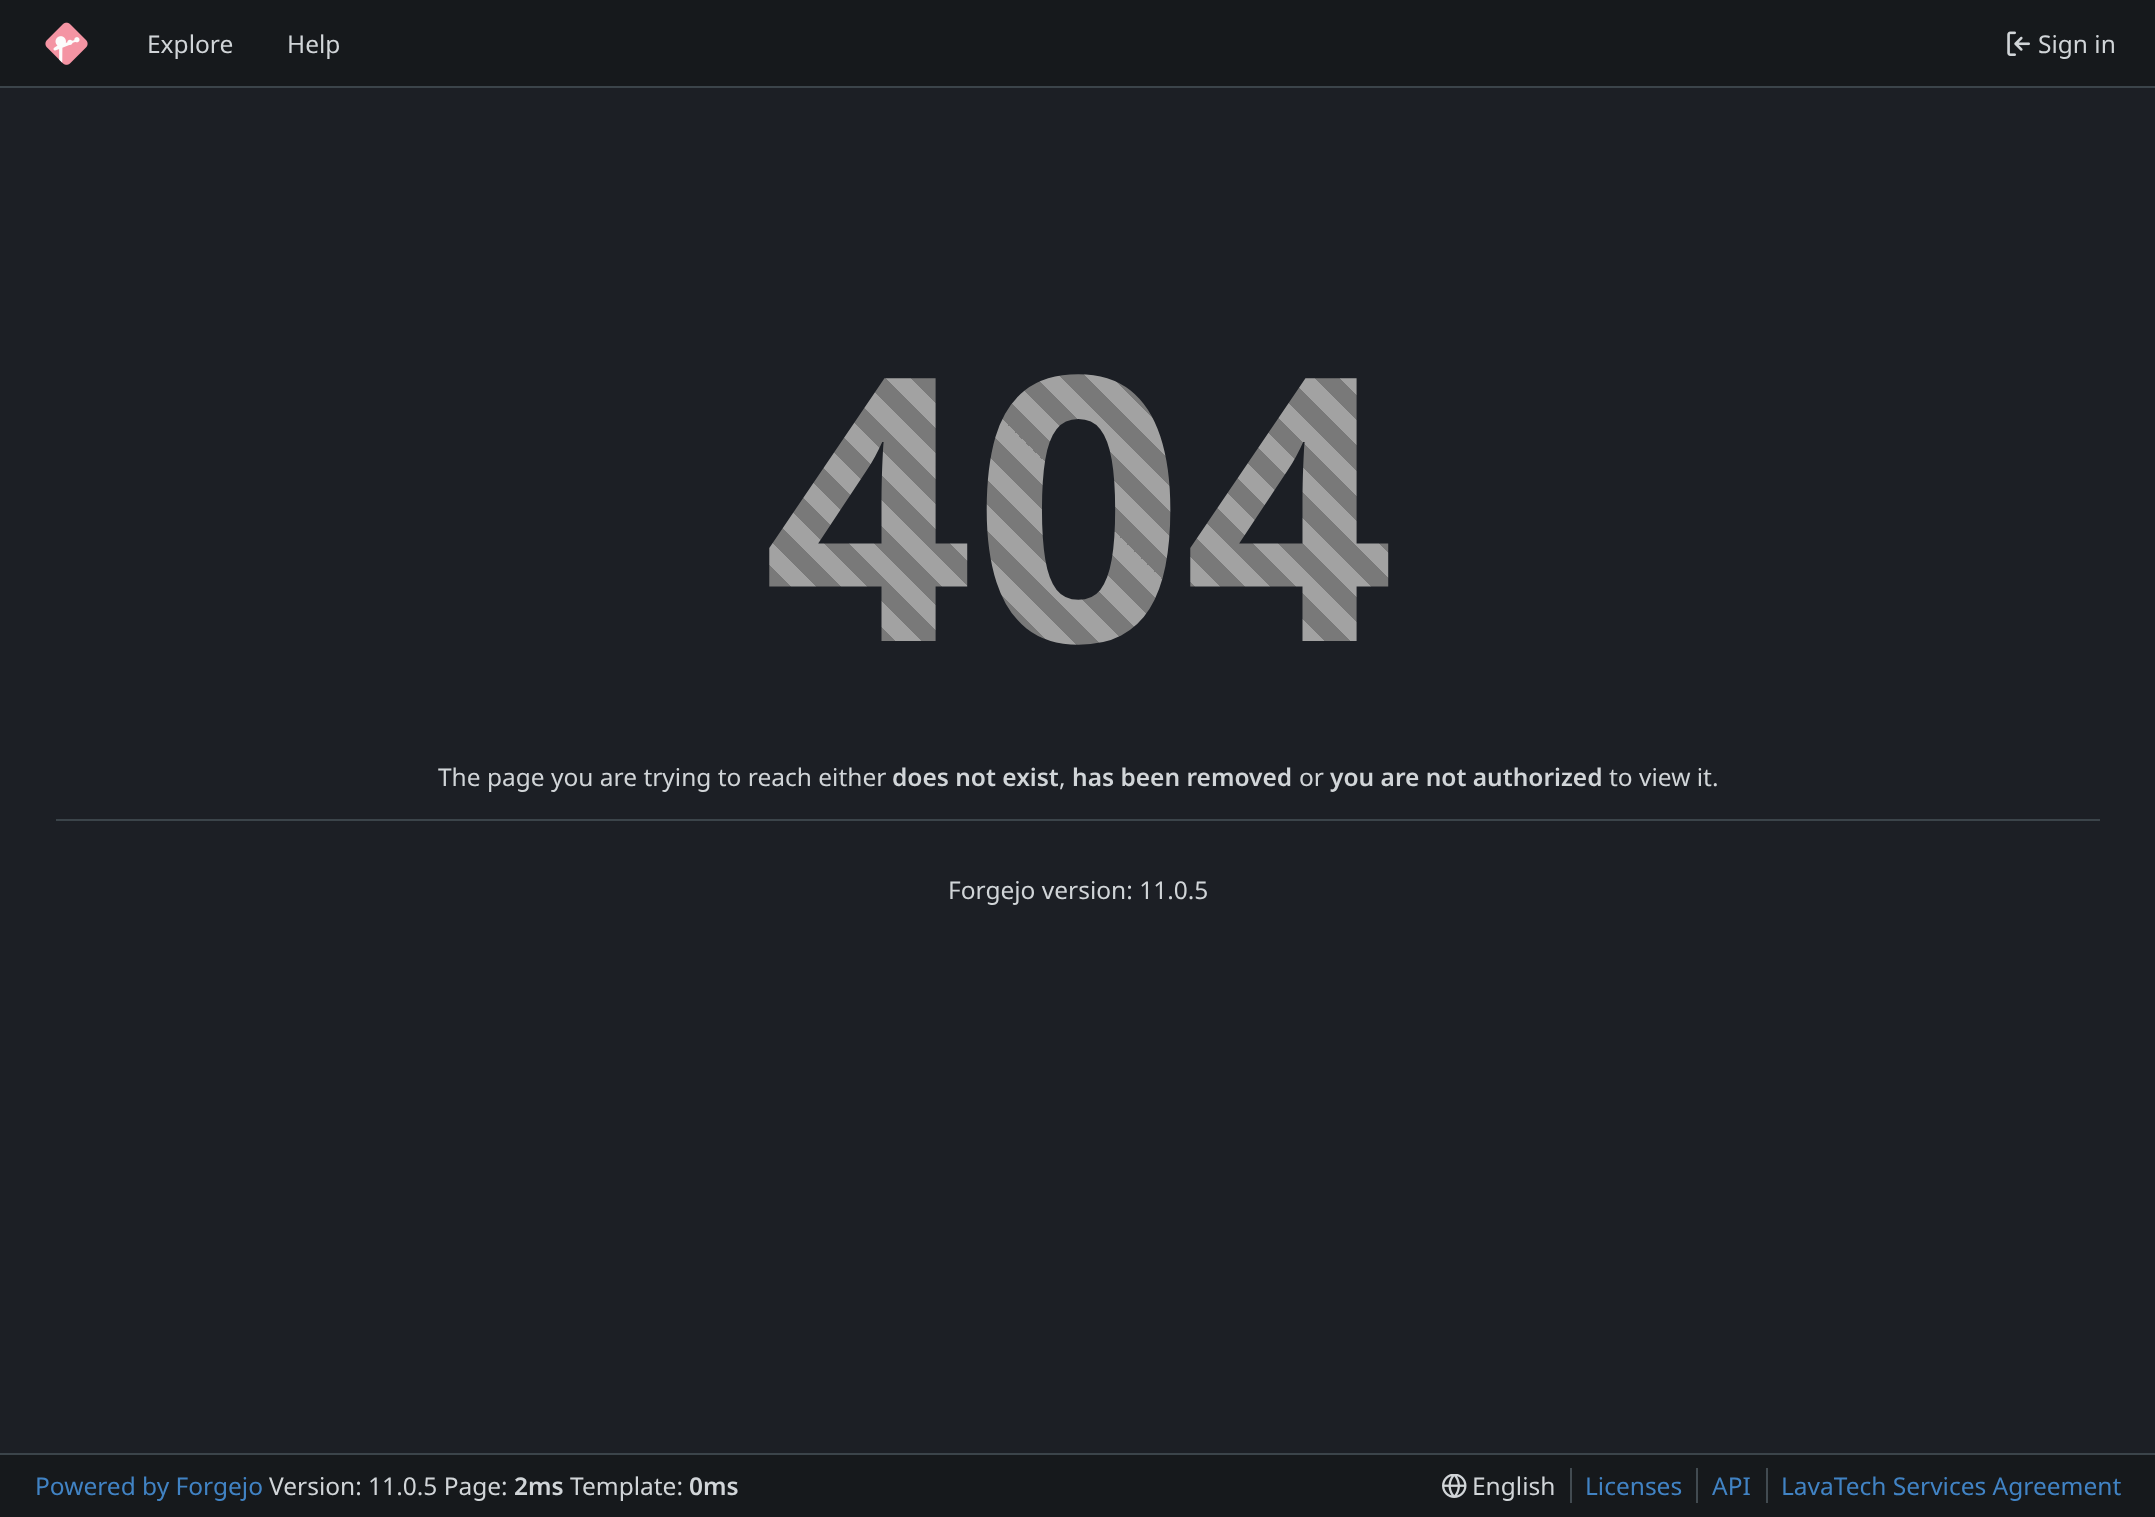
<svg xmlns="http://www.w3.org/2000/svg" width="2155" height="1517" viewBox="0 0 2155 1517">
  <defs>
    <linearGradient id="g1" gradientUnits="userSpaceOnUse" x1="449" y1="1128" x2="1711" y2="-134"><stop offset="0" stop-color="rgb(162,162,162)"/><stop offset="0.01" stop-color="rgb(162,162,162)"/><stop offset="0.01" stop-color="rgb(121,121,121)"/><stop offset="0.02" stop-color="rgb(121,121,121)"/><stop offset="0.02" stop-color="rgb(162,162,162)"/><stop offset="0.03" stop-color="rgb(162,162,162)"/><stop offset="0.03" stop-color="rgb(121,121,121)"/><stop offset="0.04" stop-color="rgb(121,121,121)"/><stop offset="0.04" stop-color="rgb(162,162,162)"/><stop offset="0.05" stop-color="rgb(162,162,162)"/><stop offset="0.05" stop-color="rgb(121,121,121)"/><stop offset="0.06" stop-color="rgb(121,121,121)"/><stop offset="0.06" stop-color="rgb(162,162,162)"/><stop offset="0.07" stop-color="rgb(162,162,162)"/><stop offset="0.07" stop-color="rgb(121,121,121)"/><stop offset="0.08" stop-color="rgb(121,121,121)"/><stop offset="0.08" stop-color="rgb(162,162,162)"/><stop offset="0.09" stop-color="rgb(162,162,162)"/><stop offset="0.09" stop-color="rgb(121,121,121)"/><stop offset="0.1" stop-color="rgb(121,121,121)"/><stop offset="0.1" stop-color="rgb(162,162,162)"/><stop offset="0.11" stop-color="rgb(162,162,162)"/><stop offset="0.11" stop-color="rgb(121,121,121)"/><stop offset="0.12" stop-color="rgb(121,121,121)"/><stop offset="0.12" stop-color="rgb(162,162,162)"/><stop offset="0.13" stop-color="rgb(162,162,162)"/><stop offset="0.13" stop-color="rgb(121,121,121)"/><stop offset="0.14" stop-color="rgb(121,121,121)"/><stop offset="0.14" stop-color="rgb(162,162,162)"/><stop offset="0.15" stop-color="rgb(162,162,162)"/><stop offset="0.15" stop-color="rgb(121,121,121)"/><stop offset="0.16" stop-color="rgb(121,121,121)"/><stop offset="0.16" stop-color="rgb(162,162,162)"/><stop offset="0.17" stop-color="rgb(162,162,162)"/><stop offset="0.17" stop-color="rgb(121,121,121)"/><stop offset="0.18" stop-color="rgb(121,121,121)"/><stop offset="0.18" stop-color="rgb(162,162,162)"/><stop offset="0.19" stop-color="rgb(162,162,162)"/><stop offset="0.19" stop-color="rgb(121,121,121)"/><stop offset="0.2" stop-color="rgb(121,121,121)"/><stop offset="0.2" stop-color="rgb(162,162,162)"/><stop offset="0.21" stop-color="rgb(162,162,162)"/><stop offset="0.21" stop-color="rgb(121,121,121)"/><stop offset="0.22" stop-color="rgb(121,121,121)"/><stop offset="0.22" stop-color="rgb(162,162,162)"/><stop offset="0.23" stop-color="rgb(162,162,162)"/><stop offset="0.23" stop-color="rgb(121,121,121)"/><stop offset="0.24" stop-color="rgb(121,121,121)"/><stop offset="0.24" stop-color="rgb(162,162,162)"/><stop offset="0.25" stop-color="rgb(162,162,162)"/><stop offset="0.25" stop-color="rgb(121,121,121)"/><stop offset="0.25" stop-color="rgb(121,121,121)"/><stop offset="0.25" stop-color="rgb(162,162,162)"/><stop offset="0.26" stop-color="rgb(162,162,162)"/><stop offset="0.26" stop-color="rgb(121,121,121)"/><stop offset="0.27" stop-color="rgb(121,121,121)"/><stop offset="0.27" stop-color="rgb(162,162,162)"/><stop offset="0.28" stop-color="rgb(162,162,162)"/><stop offset="0.28" stop-color="rgb(121,121,121)"/><stop offset="0.29" stop-color="rgb(121,121,121)"/><stop offset="0.29" stop-color="rgb(162,162,162)"/><stop offset="0.3" stop-color="rgb(162,162,162)"/><stop offset="0.3" stop-color="rgb(121,121,121)"/><stop offset="0.31" stop-color="rgb(121,121,121)"/><stop offset="0.31" stop-color="rgb(162,162,162)"/><stop offset="0.32" stop-color="rgb(162,162,162)"/><stop offset="0.32" stop-color="rgb(121,121,121)"/><stop offset="0.33" stop-color="rgb(121,121,121)"/><stop offset="0.33" stop-color="rgb(162,162,162)"/><stop offset="0.34" stop-color="rgb(162,162,162)"/><stop offset="0.34" stop-color="rgb(121,121,121)"/><stop offset="0.35" stop-color="rgb(121,121,121)"/><stop offset="0.35" stop-color="rgb(162,162,162)"/><stop offset="0.36" stop-color="rgb(162,162,162)"/><stop offset="0.36" stop-color="rgb(121,121,121)"/><stop offset="0.37" stop-color="rgb(121,121,121)"/><stop offset="0.37" stop-color="rgb(162,162,162)"/><stop offset="0.38" stop-color="rgb(162,162,162)"/><stop offset="0.38" stop-color="rgb(121,121,121)"/><stop offset="0.39" stop-color="rgb(121,121,121)"/><stop offset="0.39" stop-color="rgb(162,162,162)"/><stop offset="0.4" stop-color="rgb(162,162,162)"/><stop offset="0.4" stop-color="rgb(121,121,121)"/><stop offset="0.41" stop-color="rgb(121,121,121)"/><stop offset="0.41" stop-color="rgb(162,162,162)"/><stop offset="0.42" stop-color="rgb(162,162,162)"/><stop offset="0.42" stop-color="rgb(121,121,121)"/><stop offset="0.43" stop-color="rgb(121,121,121)"/><stop offset="0.43" stop-color="rgb(162,162,162)"/><stop offset="0.44" stop-color="rgb(162,162,162)"/><stop offset="0.44" stop-color="rgb(121,121,121)"/><stop offset="0.45" stop-color="rgb(121,121,121)"/><stop offset="0.45" stop-color="rgb(162,162,162)"/><stop offset="0.46" stop-color="rgb(162,162,162)"/><stop offset="0.46" stop-color="rgb(121,121,121)"/><stop offset="0.47" stop-color="rgb(121,121,121)"/><stop offset="0.47" stop-color="rgb(162,162,162)"/><stop offset="0.48" stop-color="rgb(162,162,162)"/><stop offset="0.48" stop-color="rgb(121,121,121)"/><stop offset="0.49" stop-color="rgb(121,121,121)"/><stop offset="0.49" stop-color="rgb(162,162,162)"/><stop offset="0.5" stop-color="rgb(162,162,162)"/><stop offset="0.5" stop-color="rgb(121,121,121)"/><stop offset="0.51" stop-color="rgb(121,121,121)"/><stop offset="0.51" stop-color="rgb(162,162,162)"/><stop offset="0.52" stop-color="rgb(162,162,162)"/><stop offset="0.52" stop-color="rgb(121,121,121)"/><stop offset="0.53" stop-color="rgb(121,121,121)"/><stop offset="0.53" stop-color="rgb(162,162,162)"/><stop offset="0.54" stop-color="rgb(162,162,162)"/><stop offset="0.54" stop-color="rgb(121,121,121)"/><stop offset="0.55" stop-color="rgb(121,121,121)"/><stop offset="0.55" stop-color="rgb(162,162,162)"/><stop offset="0.56" stop-color="rgb(162,162,162)"/><stop offset="0.56" stop-color="rgb(121,121,121)"/><stop offset="0.57" stop-color="rgb(121,121,121)"/><stop offset="0.57" stop-color="rgb(162,162,162)"/><stop offset="0.58" stop-color="rgb(162,162,162)"/><stop offset="0.58" stop-color="rgb(121,121,121)"/><stop offset="0.59" stop-color="rgb(121,121,121)"/><stop offset="0.59" stop-color="rgb(162,162,162)"/><stop offset="0.6" stop-color="rgb(162,162,162)"/><stop offset="0.6" stop-color="rgb(121,121,121)"/><stop offset="0.61" stop-color="rgb(121,121,121)"/><stop offset="0.61" stop-color="rgb(162,162,162)"/><stop offset="0.62" stop-color="rgb(162,162,162)"/><stop offset="0.62" stop-color="rgb(121,121,121)"/><stop offset="0.63" stop-color="rgb(121,121,121)"/><stop offset="0.63" stop-color="rgb(162,162,162)"/><stop offset="0.64" stop-color="rgb(162,162,162)"/><stop offset="0.64" stop-color="rgb(121,121,121)"/><stop offset="0.65" stop-color="rgb(121,121,121)"/><stop offset="0.65" stop-color="rgb(162,162,162)"/><stop offset="0.66" stop-color="rgb(162,162,162)"/><stop offset="0.66" stop-color="rgb(121,121,121)"/><stop offset="0.67" stop-color="rgb(121,121,121)"/><stop offset="0.67" stop-color="rgb(162,162,162)"/><stop offset="0.68" stop-color="rgb(162,162,162)"/><stop offset="0.68" stop-color="rgb(121,121,121)"/><stop offset="0.69" stop-color="rgb(121,121,121)"/><stop offset="0.69" stop-color="rgb(162,162,162)"/><stop offset="0.7" stop-color="rgb(162,162,162)"/><stop offset="0.7" stop-color="rgb(121,121,121)"/><stop offset="0.71" stop-color="rgb(121,121,121)"/><stop offset="0.71" stop-color="rgb(162,162,162)"/><stop offset="0.72" stop-color="rgb(162,162,162)"/><stop offset="0.72" stop-color="rgb(121,121,121)"/><stop offset="0.73" stop-color="rgb(121,121,121)"/><stop offset="0.73" stop-color="rgb(162,162,162)"/><stop offset="0.74" stop-color="rgb(162,162,162)"/><stop offset="0.74" stop-color="rgb(121,121,121)"/><stop offset="0.75" stop-color="rgb(121,121,121)"/><stop offset="0.75" stop-color="rgb(162,162,162)"/><stop offset="0.75" stop-color="rgb(162,162,162)"/><stop offset="0.75" stop-color="rgb(121,121,121)"/><stop offset="0.76" stop-color="rgb(121,121,121)"/><stop offset="0.76" stop-color="rgb(162,162,162)"/><stop offset="0.77" stop-color="rgb(162,162,162)"/><stop offset="0.77" stop-color="rgb(121,121,121)"/><stop offset="0.78" stop-color="rgb(121,121,121)"/><stop offset="0.78" stop-color="rgb(162,162,162)"/><stop offset="0.79" stop-color="rgb(162,162,162)"/><stop offset="0.79" stop-color="rgb(121,121,121)"/><stop offset="0.8" stop-color="rgb(121,121,121)"/><stop offset="0.8" stop-color="rgb(162,162,162)"/><stop offset="0.81" stop-color="rgb(162,162,162)"/><stop offset="0.81" stop-color="rgb(121,121,121)"/><stop offset="0.82" stop-color="rgb(121,121,121)"/><stop offset="0.82" stop-color="rgb(162,162,162)"/><stop offset="0.83" stop-color="rgb(162,162,162)"/><stop offset="0.83" stop-color="rgb(121,121,121)"/><stop offset="0.84" stop-color="rgb(121,121,121)"/><stop offset="0.84" stop-color="rgb(162,162,162)"/><stop offset="0.85" stop-color="rgb(162,162,162)"/><stop offset="0.85" stop-color="rgb(121,121,121)"/><stop offset="0.86" stop-color="rgb(121,121,121)"/><stop offset="0.86" stop-color="rgb(162,162,162)"/><stop offset="0.87" stop-color="rgb(162,162,162)"/><stop offset="0.87" stop-color="rgb(121,121,121)"/><stop offset="0.88" stop-color="rgb(121,121,121)"/><stop offset="0.88" stop-color="rgb(162,162,162)"/><stop offset="0.89" stop-color="rgb(162,162,162)"/><stop offset="0.89" stop-color="rgb(121,121,121)"/><stop offset="0.9" stop-color="rgb(121,121,121)"/><stop offset="0.9" stop-color="rgb(162,162,162)"/><stop offset="0.91" stop-color="rgb(162,162,162)"/><stop offset="0.91" stop-color="rgb(121,121,121)"/><stop offset="0.92" stop-color="rgb(121,121,121)"/><stop offset="0.92" stop-color="rgb(162,162,162)"/><stop offset="0.93" stop-color="rgb(162,162,162)"/><stop offset="0.93" stop-color="rgb(121,121,121)"/><stop offset="0.94" stop-color="rgb(121,121,121)"/><stop offset="0.94" stop-color="rgb(162,162,162)"/><stop offset="0.95" stop-color="rgb(162,162,162)"/><stop offset="0.95" stop-color="rgb(121,121,121)"/><stop offset="0.96" stop-color="rgb(121,121,121)"/><stop offset="0.96" stop-color="rgb(162,162,162)"/><stop offset="0.97" stop-color="rgb(162,162,162)"/><stop offset="0.97" stop-color="rgb(121,121,121)"/><stop offset="0.98" stop-color="rgb(121,121,121)"/><stop offset="0.98" stop-color="rgb(162,162,162)"/><stop offset="0.99" stop-color="rgb(162,162,162)"/><stop offset="0.99" stop-color="rgb(121,121,121)"/><stop offset="1" stop-color="rgb(121,121,121)"/></linearGradient>
  </defs>
  <rect width="100%" height="100%" fill="rgb(28,31,37)"/>
  <rect x="0" y="0" width="2155" height="86" fill="rgb(22,25,28)"/>
  <rect x="0" y="86" width="2155" height="2" fill="rgb(59,68,74)"/>
  <image x="45" y="22" width="43" height="43" href="pic1.png"/>
  <g font-family="Noto Sans" font-size="24.5" fill="rgb(209,213,216)">
    <text x="147" y="53">Explore</text>
    <text x="287" y="53">Help</text>
  </g>
  <image x="2007" y="31" width="23" height="25" href="pic2.png"/>
  <text x="2038" y="53" font-family="Noto Sans" font-size="24.5" fill="rgb(209,213,216)">Sign in</text>
  <text x="763" y="641" font-family="Noto Sans" font-size="368" font-weight="bold" fill="url(#g1)">404</text>
  <text x="438" y="786" font-family="Noto Sans" font-size="24.5" fill="rgb(209,213,216)">The page you are trying to reach either</text>
  <text x="892" y="786" font-family="Noto Sans" font-size="24.5" font-weight="600" fill="rgb(209,213,216)">does not exist</text>
  <text x="1059" y="786" font-family="Noto Sans" font-size="24.5" fill="rgb(209,213,216)">,</text>
  <text x="1072" y="786" font-family="Noto Sans" font-size="24.5" font-weight="600" fill="rgb(209,213,216)">has been removed</text>
  <text x="1299" y="786" font-family="Noto Sans" font-size="24.5" fill="rgb(209,213,216)">or</text>
  <text x="1330" y="786" font-family="Noto Sans" font-size="24.5" font-weight="600" fill="rgb(209,213,216)">you are not authorized</text>
  <text x="1609" y="786" font-family="Noto Sans" font-size="24.5" fill="rgb(209,213,216)">to view it.</text>
  <rect x="56" y="819" width="2044" height="2" fill="rgb(59,68,74)"/>
  <text x="948" y="899" font-family="Noto Sans" font-size="24.5" fill="rgb(209,213,216)">Forgejo version: 11.0.5</text>
  <rect x="0" y="1455" width="2155" height="62" fill="rgb(22,25,28)"/>
  <rect x="0" y="1453" width="2155" height="2" fill="rgb(59,68,74)"/>
  <text x="35" y="1495" font-family="Noto Sans" font-size="24.5" fill="rgb(65,131,196)">Powered by Forgejo</text>
  <text x="269" y="1495" font-family="Noto Sans" font-size="24.5" fill="rgb(209,213,216)">Version: 11.0.5 Page:</text>
  <text x="514" y="1495" font-family="Noto Sans" font-size="24.5" font-weight="600" fill="rgb(209,213,216)">2ms</text>
  <text x="570" y="1495" font-family="Noto Sans" font-size="24.5" fill="rgb(209,213,216)">Template:</text>
  <text x="689" y="1495" font-family="Noto Sans" font-size="24.5" font-weight="600" fill="rgb(209,213,216)">0ms</text>
  <image x="1442" y="1474" width="25" height="24" href="pic3.png"/>
  <text x="1472" y="1495" font-family="Noto Sans" font-size="24.5" fill="rgb(209,213,216)">English</text>
  <rect x="1570" y="1468" width="2" height="35" fill="rgb(66,75,81)"/>
  <text x="1585" y="1495" font-family="Noto Sans" font-size="24.5" fill="rgb(65,131,196)">Licenses</text>
  <rect x="1696" y="1468" width="2" height="35" fill="rgb(66,75,81)"/>
  <text x="1712" y="1495" font-family="Noto Sans" font-size="24.5" fill="rgb(65,131,196)">API</text>
  <rect x="1766" y="1468" width="2" height="35" fill="rgb(66,75,81)"/>
  <text x="1781" y="1495" font-family="Noto Sans" font-size="24.5" fill="rgb(65,131,196)">LavaTech Services Agreement</text>
</svg>
